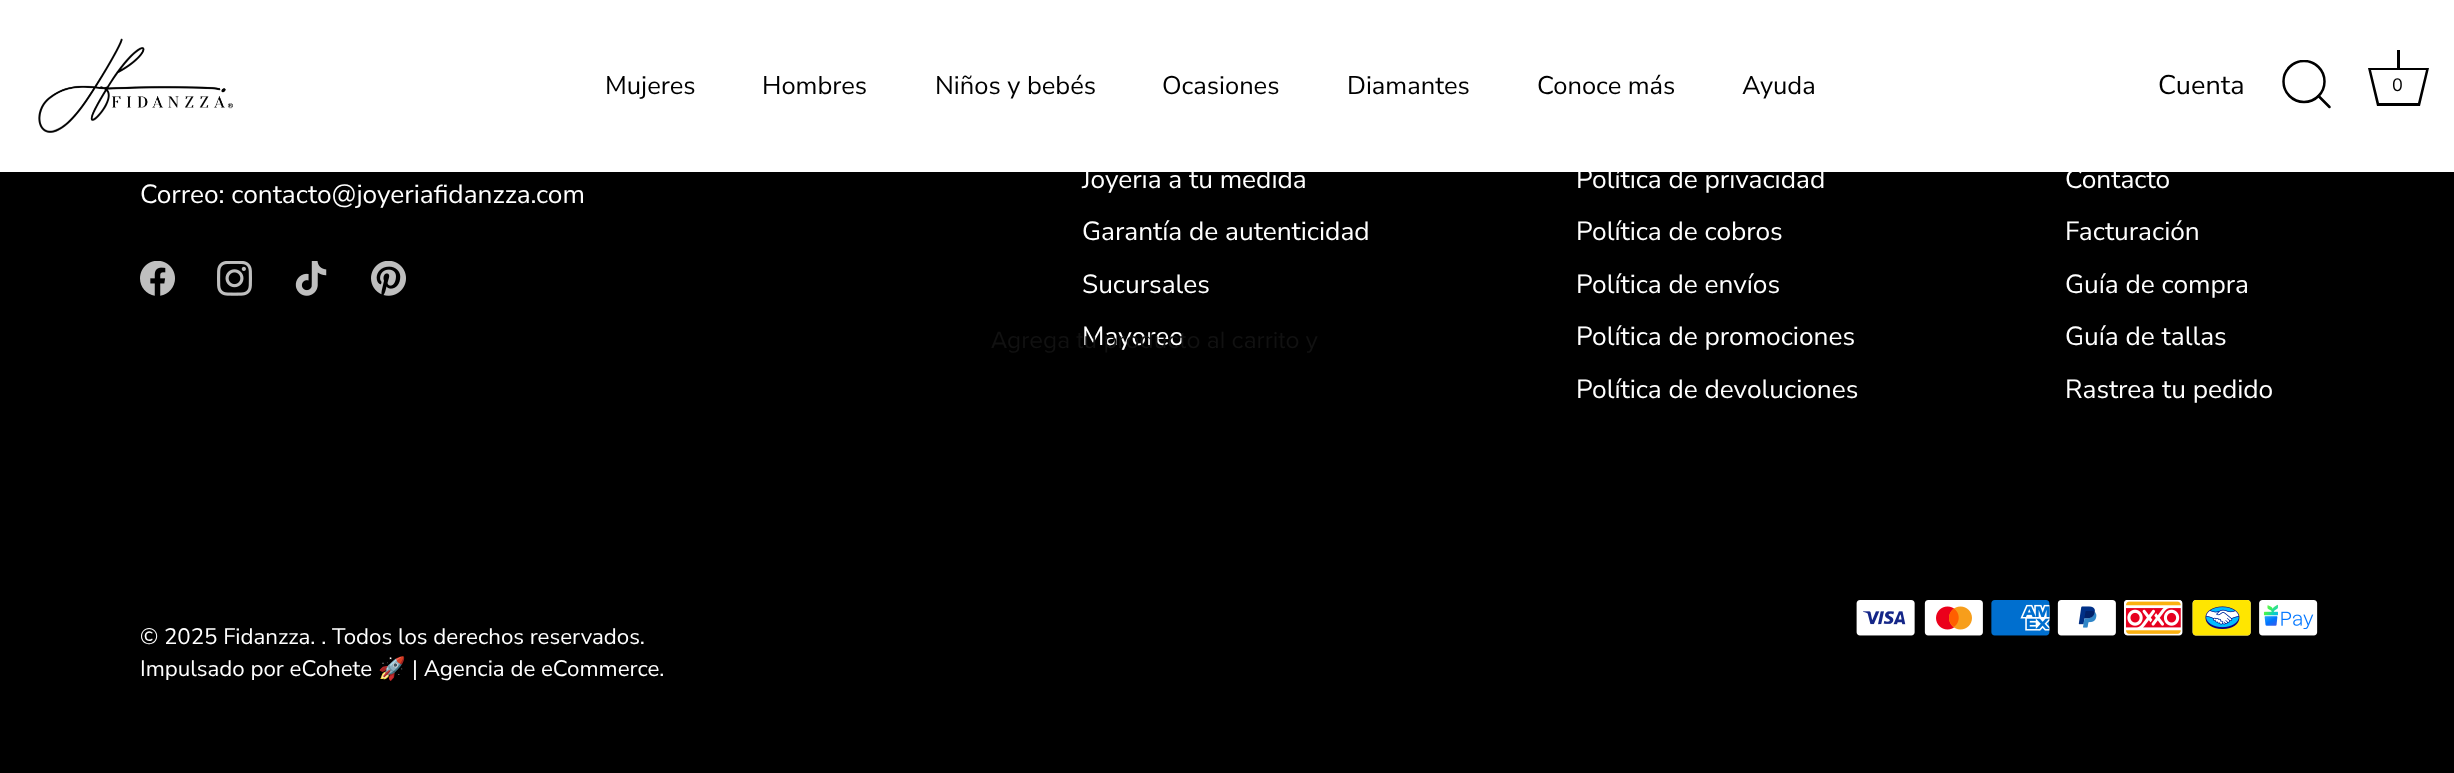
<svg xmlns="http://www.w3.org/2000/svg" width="2454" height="773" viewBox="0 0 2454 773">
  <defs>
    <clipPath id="clip1"><rect x="2282" y="60" width="51" height="50"/></clipPath>
  </defs>
  <rect width="100%" height="100%" fill="rgb(0,0,0)"/>
  <rect x="0" y="0" width="2454" height="172" fill="rgb(255,255,255)"/>
  <image x="38" y="38" width="195" height="95" href="pic1.png"/>
  <g font-family="Nunito Sans" font-size="25.5" fill="rgb(0,0,0)">
    <text x="605" y="94">Mujeres</text>
    <text x="762" y="94">Hombres</text>
    <text x="935" y="94">Niños y bebés</text>
    <text x="1162" y="94">Ocasiones</text>
    <text x="1347" y="94">Diamantes</text>
    <text x="1537" y="94">Conoce más</text>
    <text x="1742" y="94">Ayuda</text>
  </g>
  <text x="2158" y="94" font-family="Nunito Sans" font-size="27" fill="rgb(0,0,0)">Cuenta</text>
  <g clip-path="url(#clip1)">
    <circle cx="2304" cy="81.5" r="20.5" fill="none" stroke="rgb(0,0,0)" stroke-width="2.5"/>
  </g>
  <path d="M2329.5 107L2318.5 96" fill="none" stroke="rgb(0,0,0)" stroke-width="2.5" stroke-linecap="round" stroke-linejoin="round"/>
  <rect x="2397" y="50" width="3" height="18" fill="rgb(0,0,0)"/>
  <path d="M2426 70L2418 103H2379L2371 70H2426M2429 68H2368L2377 106H2420Z" fill="rgb(0,0,0)"/>
  <text x="2392" y="91" font-family="Nunito Sans" font-size="18" fill="rgb(0,0,0)">0</text>
  <text x="140" y="203" font-family="Nunito Sans" font-size="26.25" fill="rgb(255,255,255)">Correo: contacto@joyeriafidanzza.com</text>
  <image x="140" y="261" width="35" height="35" href="pic2.png"/>
  <image x="217" y="261" width="35" height="35" href="pic3.png"/>
  <image x="295" y="261" width="32" height="35" href="pic4.png"/>
  <image x="371" y="261" width="35" height="35" href="pic5.png"/>
  <g font-family="Nunito Sans" font-size="26.25" fill="rgb(255,255,255)">
    <text>
      <tspan x="1082" y="188">Joyeria a tu medida</tspan>
      <tspan x="1082" y="240">Garantía de autenticidad</tspan>
    </text>
    <text>
      <tspan x="1082" y="293">Sucursales</tspan>
      <tspan x="1082" y="345">Mayoreo</tspan>
    </text>
    <text>
      <tspan x="1576" y="188">Política de privacidad</tspan>
      <tspan x="1576" y="240">Política de cobros</tspan>
    </text>
    <text>
      <tspan x="1576" y="293">Política de envíos</tspan>
      <tspan x="1576" y="345">Política de promociones</tspan>
    </text>
    <text x="1576" y="398">Política de devoluciones</text>
    <text>
      <tspan x="2065" y="188">Contacto</tspan>
      <tspan x="2065" y="240">Facturación</tspan>
    </text>
    <text>
      <tspan x="2065" y="293">Guía de compra</tspan>
      <tspan x="2065" y="345">Guía de tallas</tspan>
    </text>
    <text x="2065" y="398">Rastrea tu pedido</text>
  </g>
  <image x="1856" y="600" width="59" height="36" href="pic6.png"/>
  <image x="1924" y="600" width="59" height="36" href="pic7.png"/>
  <image x="1991" y="600" width="59" height="36" href="pic8.png"/>
  <image x="2057" y="600" width="59" height="36" href="pic9.png"/>
  <image x="2124" y="600" width="59" height="36" href="pic10.png"/>
  <image x="2192" y="600" width="59" height="36" href="pic11.png"/>
  <image x="2259" y="600" width="59" height="36" href="pic12.png"/>
  <g font-family="Nunito Sans" font-size="22.3" fill="rgb(255,255,255)">
    <text>
      <tspan x="140" y="644">© 2025 Fidanzza. . Todos los derechos reservados.</tspan>
      <tspan x="140" y="676">Impulsado por eCohete</tspan>
    </text>
  </g>
  <text x="378" y="676" font-family="Noto Color Emoji" font-size="22.3" fill="rgb(255,255,255)">🚀</text>
  <text x="412" y="676" font-family="Nunito Sans" font-size="22.3" fill="rgb(255,255,255)">| Agencia de eCommerce.</text>
  <text x="991" y="348" font-family="Proxima Nova" font-size="24.5" fill="rgb(17,17,17)">Agrega tu producto al carrito y</text>
</svg>
